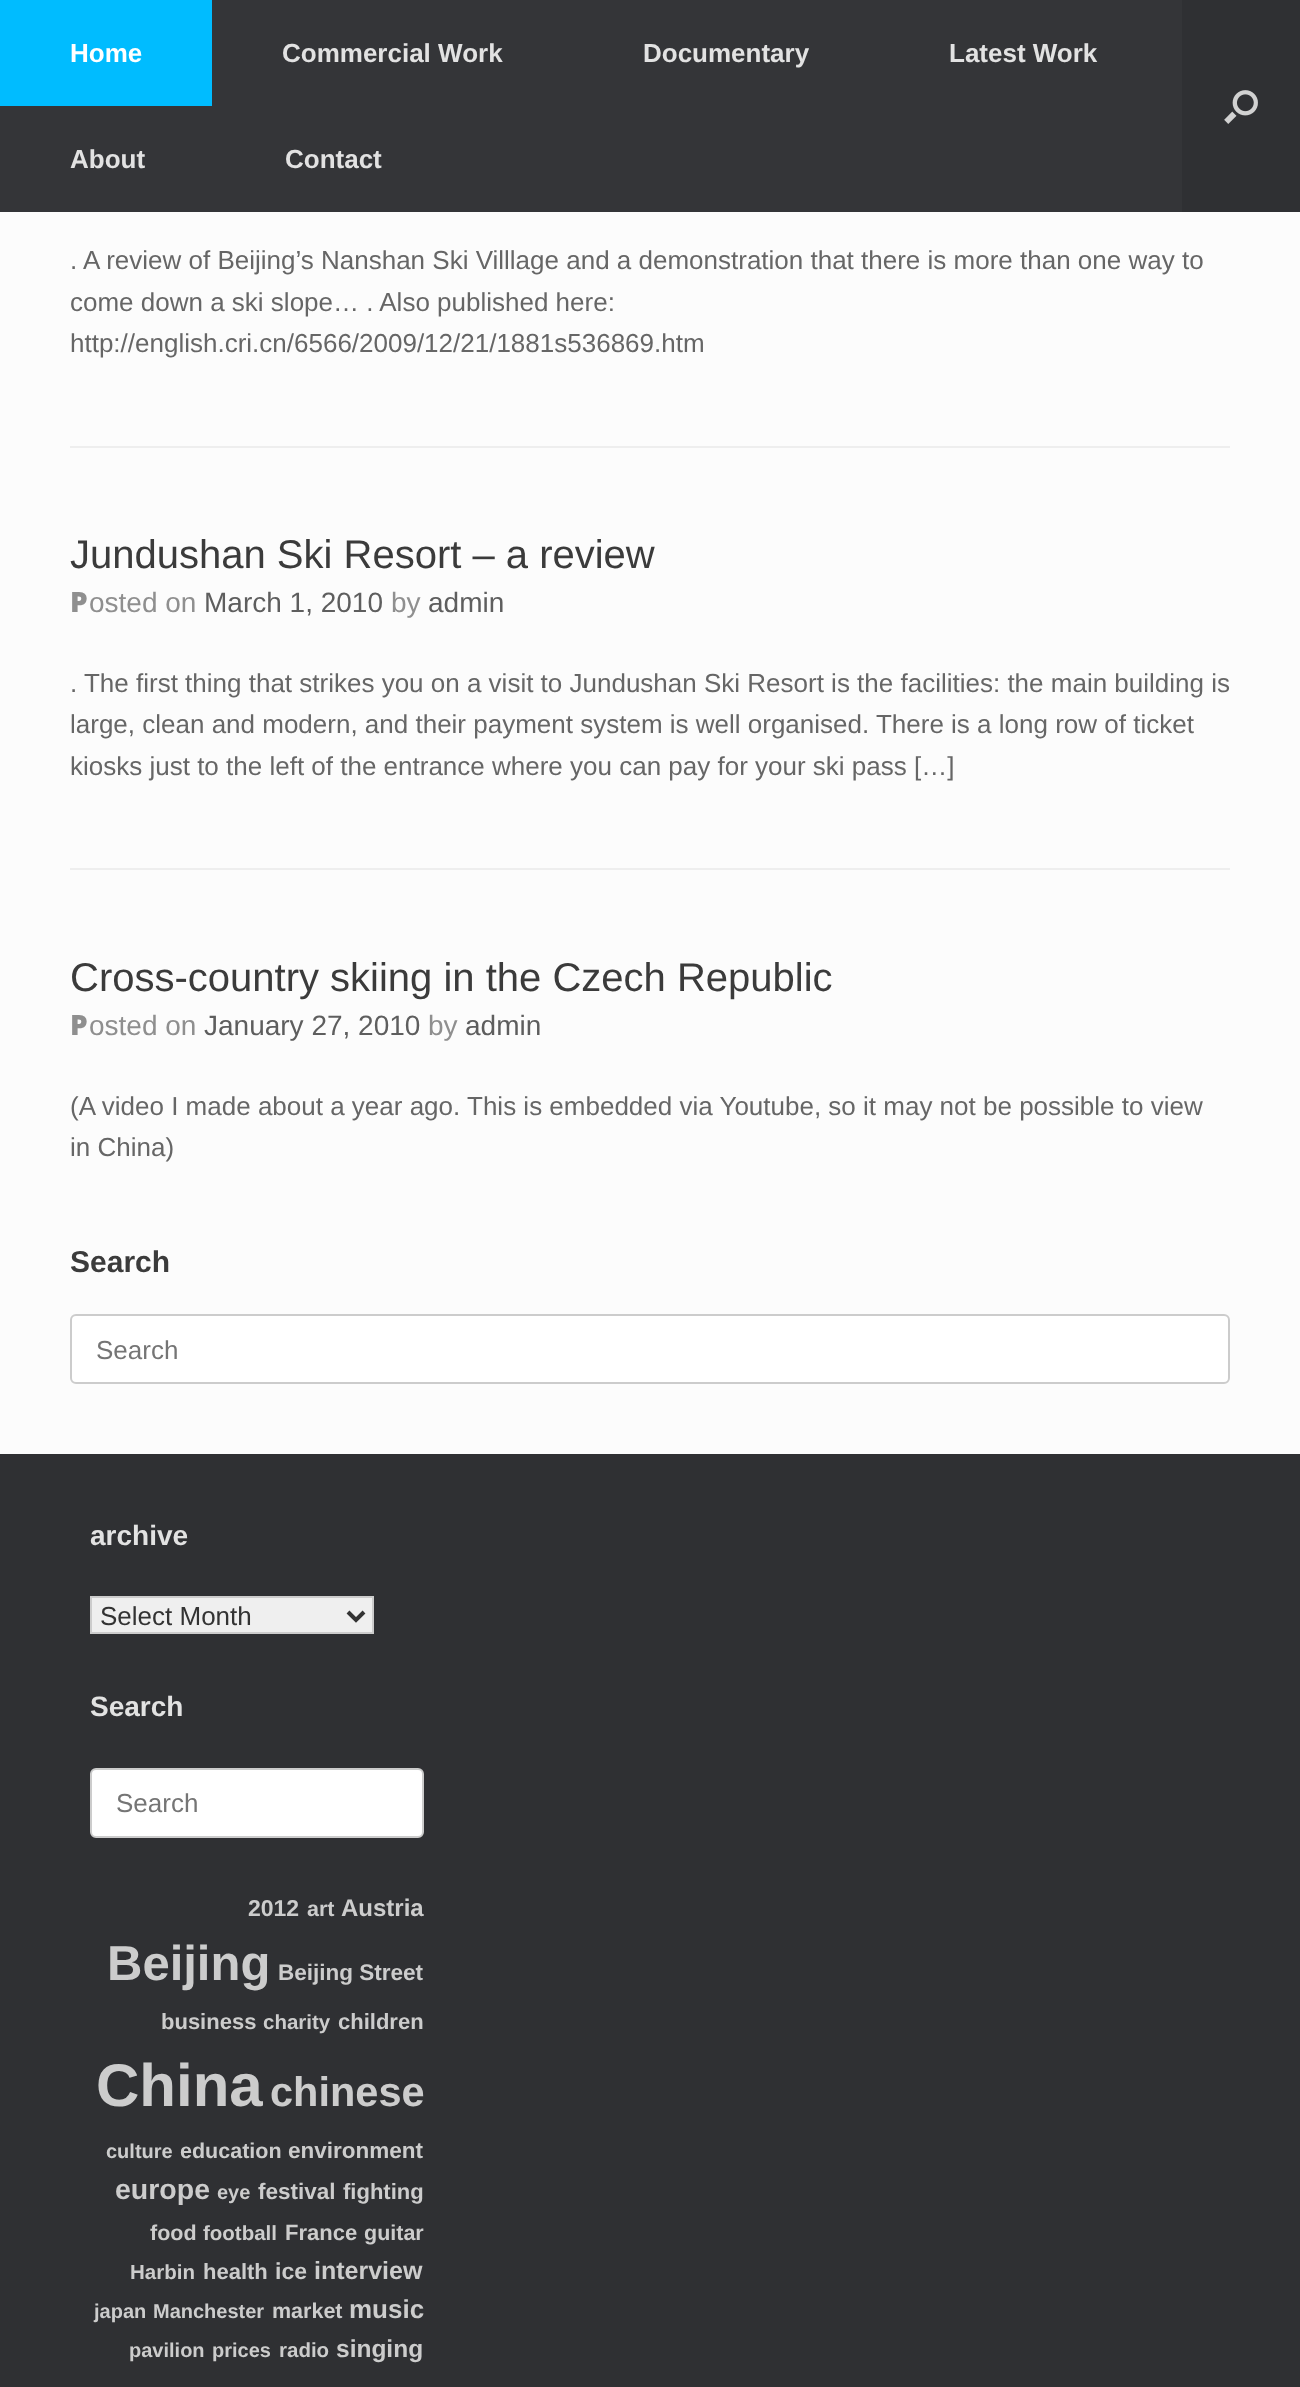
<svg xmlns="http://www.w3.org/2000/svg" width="1300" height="2387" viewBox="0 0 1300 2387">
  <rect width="100%" height="100%" fill="rgb(47,48,51)"/>
  <rect x="0" y="0" width="1182" height="212" fill="rgb(52,53,56)"/>
  <rect x="0" y="0" width="212" height="106" fill="rgb(0,188,255)"/>
  <text x="70" y="62" font-family="Liberation Sans" font-size="26" font-weight="bold" fill="rgb(255,255,255)">Home</text>
  <g font-family="Liberation Sans" font-size="26" font-weight="bold" fill="rgb(226,226,226)">
    <text x="282" y="62">Commercial Work</text>
    <text x="643" y="62">Documentary</text>
    <text x="949" y="62">Latest Work</text>
    <text x="70" y="168">About</text>
    <text x="285" y="168">Contact</text>
  </g>
  <image x="1224" y="90" width="34" height="34" href="pic1.png"/>
  <rect x="0" y="212" width="1300" height="1242" fill="rgb(252,252,252)"/>
  <rect x="70" y="446" width="1160" height="2" fill="rgb(238,238,238)"/>
  <g font-family="Liberation Sans" font-size="26" fill="rgb(102,102,102)">
    <text>
      <tspan x="70" y="269">. A review of Beijing’s Nanshan Ski Villlage and a demonstration that there is more than one way to</tspan>
      <tspan x="70" y="311">come down a ski slope… . Also published here:</tspan>
      <tspan x="70" y="352">http://english.cri.cn/6566/2009/12/21/1881s536869.htm</tspan>
    </text>
  </g>
  <rect x="70" y="868" width="1160" height="2" fill="rgb(238,238,238)"/>
  <text x="70" y="568" font-family="Liberation Sans" font-size="40" fill="rgb(59,59,59)">Jundushan Ski Resort – a review</text>
  <text x="70" y="612" font-family="Noto Sans" font-size="28" font-weight="900" fill="rgb(143,143,143)">P</text>
  <text x="89" y="612" font-family="Liberation Sans" font-size="28" fill="rgb(143,143,143)">osted on</text>
  <text x="204" y="612" font-family="Liberation Sans" font-size="28" fill="rgb(94,94,94)">March 1, 2010</text>
  <text x="391" y="612" font-family="Liberation Sans" font-size="28" fill="rgb(143,143,143)">by</text>
  <text x="428" y="612" font-family="Liberation Sans" font-size="28" fill="rgb(94,94,94)">admin</text>
  <g font-family="Liberation Sans" font-size="26" fill="rgb(102,102,102)">
    <text>
      <tspan x="70" y="692">. The first thing that strikes you on a visit to Jundushan Ski Resort is the facilities: the main building is</tspan>
      <tspan x="70" y="733">large, clean and modern, and their payment system is well organised. There is a long row of ticket</tspan>
      <tspan x="70" y="775">kiosks just to the left of the entrance where you can pay for your ski pass […]</tspan>
    </text>
  </g>
  <text x="70" y="991" font-family="Liberation Sans" font-size="40" fill="rgb(59,59,59)">Cross-country skiing in the Czech Republic</text>
  <text x="70" y="1035" font-family="Noto Sans" font-size="28" font-weight="900" fill="rgb(143,143,143)">P</text>
  <text x="89" y="1035" font-family="Liberation Sans" font-size="28" fill="rgb(143,143,143)">osted on</text>
  <text x="204" y="1035" font-family="Liberation Sans" font-size="28" fill="rgb(94,94,94)">January 27, 2010</text>
  <text x="428" y="1035" font-family="Liberation Sans" font-size="28" fill="rgb(143,143,143)">by</text>
  <text x="465" y="1035" font-family="Liberation Sans" font-size="28" fill="rgb(94,94,94)">admin</text>
  <g font-family="Liberation Sans" font-size="26" fill="rgb(102,102,102)">
    <text>
      <tspan x="70" y="1115">(A video I made about a year ago. This is embedded via Youtube, so it may not be possible to view</tspan>
      <tspan x="70" y="1156">in China)</tspan>
    </text>
  </g>
  <text x="70" y="1272" font-family="Liberation Sans" font-size="30" font-weight="bold" fill="rgb(59,59,59)">Search</text>
  <rect x="71" y="1315" width="1158" height="68" rx="5" fill="rgb(255,255,255)" stroke="rgb(204,204,204)" stroke-width="2"/>
  <text x="96" y="1359" font-family="Liberation Sans" font-size="26" fill="rgb(117,117,117)">Search</text>
  <text x="90" y="1545" font-family="Liberation Sans" font-size="28" font-weight="bold" fill="rgb(226,226,226)">archive</text>
  <rect x="91" y="1597" width="282" height="36" fill="rgb(239,239,239)" stroke="rgb(204,204,204)" stroke-width="2"/>
  <path d="M348 1612L356 1620L364 1612" fill="none" stroke="rgb(51,51,51)" stroke-width="4"/>
  <text x="100" y="1625" font-family="Liberation Sans" font-size="26" fill="rgb(51,51,51)">Select Month</text>
  <text x="90" y="1716" font-family="Liberation Sans" font-size="28" font-weight="bold" fill="rgb(226,226,226)">Search</text>
  <rect x="91" y="1769" width="332" height="68" rx="5" fill="rgb(255,255,255)" stroke="rgb(204,204,204)" stroke-width="2"/>
  <text x="116" y="1812" font-family="Liberation Sans" font-size="26" fill="rgb(117,117,117)">Search</text>
  <text x="248" y="1916" font-family="Liberation Sans" font-size="23" font-weight="bold" fill="rgb(204,204,204)">2012</text>
  <text x="307" y="1916" font-family="Liberation Sans" font-size="21.5" font-weight="bold" fill="rgb(204,204,204)">art</text>
  <text x="341" y="1916" font-family="Liberation Sans" font-size="24" font-weight="bold" fill="rgb(204,204,204)">Austria</text>
  <text x="107" y="1980" font-family="Liberation Sans" font-size="49" font-weight="bold" fill="rgb(204,204,204)">Beijing</text>
  <text x="278" y="1980" font-family="Liberation Sans" font-size="22.5" font-weight="bold" fill="rgb(204,204,204)">Beijing Street</text>
  <text x="161" y="2029" font-family="Liberation Sans" font-size="22" font-weight="bold" fill="rgb(204,204,204)">business</text>
  <text x="263" y="2029" font-family="Liberation Sans" font-size="20.5" font-weight="bold" fill="rgb(204,204,204)">charity</text>
  <text x="338" y="2029" font-family="Liberation Sans" font-size="22" font-weight="bold" fill="rgb(204,204,204)">children</text>
  <text x="96" y="2106" font-family="Liberation Sans" font-size="60" font-weight="bold" fill="rgb(204,204,204)">China</text>
  <text x="270" y="2106" font-family="Liberation Sans" font-size="41.5" font-weight="bold" fill="rgb(204,204,204)">chinese</text>
  <text x="106" y="2158" font-family="Liberation Sans" font-size="20" font-weight="bold" fill="rgb(204,204,204)">culture</text>
  <text x="180" y="2158" font-family="Liberation Sans" font-size="21.5" font-weight="bold" fill="rgb(204,204,204)">education</text>
  <text x="288" y="2158" font-family="Liberation Sans" font-size="22.5" font-weight="bold" fill="rgb(204,204,204)">environment</text>
  <text x="115" y="2199" font-family="Liberation Sans" font-size="28.5" font-weight="bold" fill="rgb(204,204,204)">europe</text>
  <text x="217" y="2199" font-family="Liberation Sans" font-size="20" font-weight="bold" fill="rgb(204,204,204)">eye</text>
  <text x="258" y="2199" font-family="Liberation Sans" font-size="22.5" font-weight="bold" fill="rgb(204,204,204)">festival</text>
  <text x="343" y="2199" font-family="Liberation Sans" font-size="22" font-weight="bold" fill="rgb(204,204,204)">fighting</text>
  <text x="150" y="2240" font-family="Liberation Sans" font-size="21.5" font-weight="bold" fill="rgb(204,204,204)">food</text>
  <text x="203" y="2240" font-family="Liberation Sans" font-size="20.5" font-weight="bold" fill="rgb(204,204,204)">football</text>
  <text x="285" y="2240" font-family="Liberation Sans" font-size="22" font-weight="bold" fill="rgb(204,204,204)">France</text>
  <text x="364" y="2240" font-family="Liberation Sans" font-size="21.5" font-weight="bold" fill="rgb(204,204,204)">guitar</text>
  <text x="130" y="2279" font-family="Liberation Sans" font-size="20.5" font-weight="bold" fill="rgb(204,204,204)">Harbin</text>
  <text x="203" y="2279" font-family="Liberation Sans" font-size="22" font-weight="bold" fill="rgb(204,204,204)">health</text>
  <text x="275" y="2279" font-family="Liberation Sans" font-size="23" font-weight="bold" fill="rgb(204,204,204)">ice</text>
  <text x="314" y="2279" font-family="Liberation Sans" font-size="25" font-weight="bold" fill="rgb(204,204,204)">interview</text>
  <g font-family="Liberation Sans" font-size="20" font-weight="bold" fill="rgb(204,204,204)">
    <text x="94" y="2318">japan</text>
    <text x="153" y="2318">Manchester</text>
  </g>
  <text x="272" y="2318" font-family="Liberation Sans" font-size="21.5" font-weight="bold" fill="rgb(204,204,204)">market</text>
  <text x="349" y="2318" font-family="Liberation Sans" font-size="26" font-weight="bold" fill="rgb(204,204,204)">music</text>
  <g font-family="Liberation Sans" font-size="20" font-weight="bold" fill="rgb(204,204,204)">
    <text x="129" y="2357">pavilion</text>
    <text x="212" y="2357">prices</text>
  </g>
  <text x="279" y="2357" font-family="Liberation Sans" font-size="20.5" font-weight="bold" fill="rgb(204,204,204)">radio</text>
  <text x="336" y="2357" font-family="Liberation Sans" font-size="24.5" font-weight="bold" fill="rgb(204,204,204)">singing</text>
</svg>
